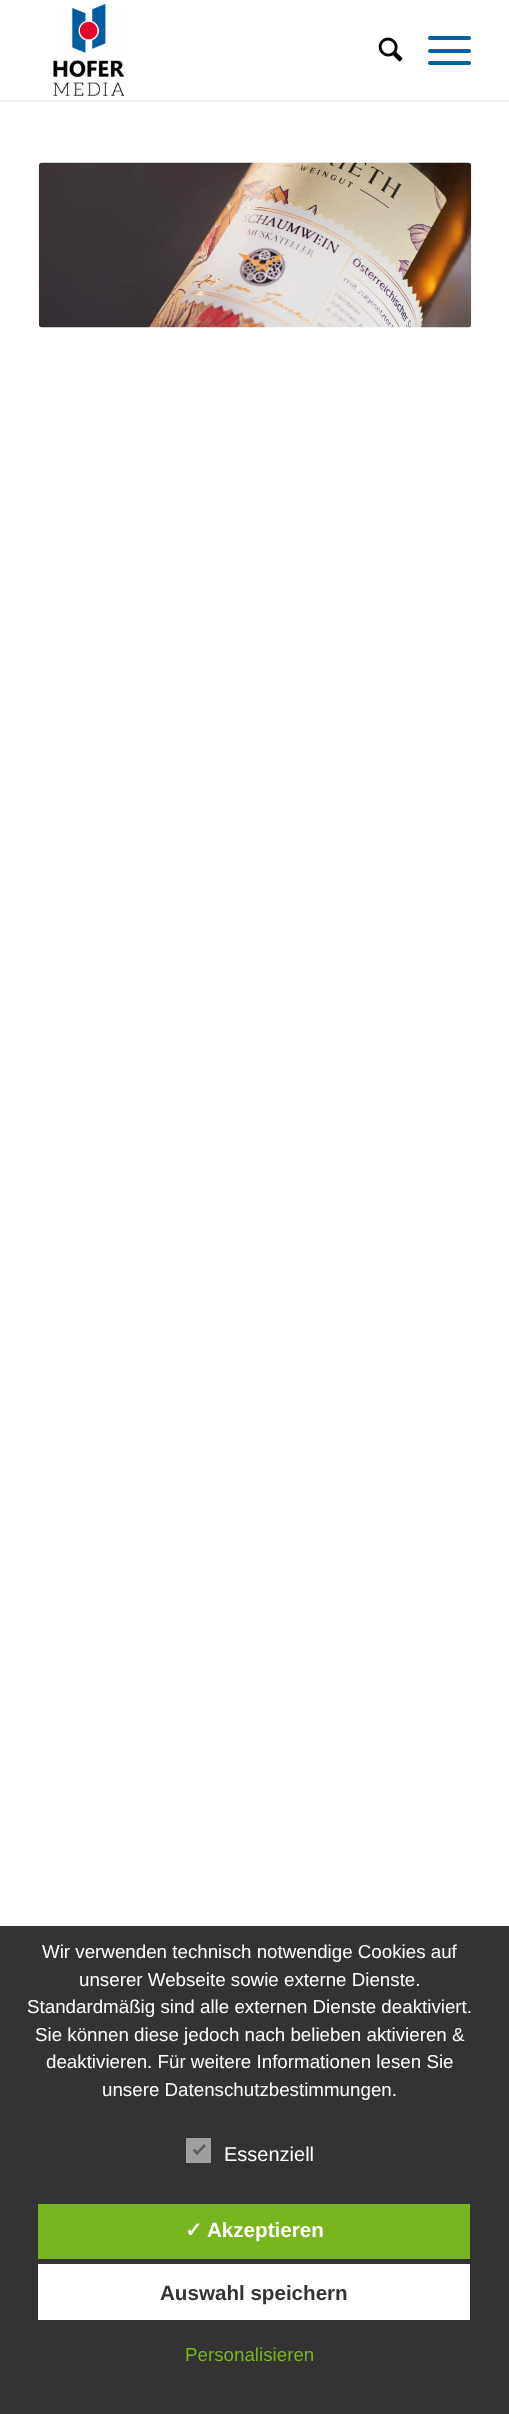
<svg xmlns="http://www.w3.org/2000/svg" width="509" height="2414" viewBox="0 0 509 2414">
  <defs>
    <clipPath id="clip1"><rect x="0" y="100" width="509" height="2"/></clipPath>
  </defs>
  <rect width="100%" height="100%" fill="rgb(255,255,255)"/>
  <g clip-path="url(#clip1)">
    <rect x="-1" y="-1" width="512" height="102" fill="rgba(0,0,0,0.1)" filter="blur(1px)"/>
  </g>
  <image x="53" y="4" width="72" height="92" href="pic1.png"/>
  <image x="378" y="37" width="25" height="25" href="pic2.png"/>
  <rect x="428" y="49" width="43" height="4" rx="2" fill="rgb(0,97,161)"/>
  <rect x="428" y="36" width="43" height="4" rx="2" fill="rgb(0,97,161)"/>
  <rect x="428" y="61" width="43" height="4" rx="2" fill="rgb(0,97,161)"/>
  <image x="38" y="162" width="434" height="166" href="pic3.png"/>
  <rect x="0" y="1926" width="509" height="488" fill="rgb(51,51,51)"/>
  <g font-family="Liberation Sans" font-size="18.75" fill="rgb(255,255,255)">
    <text x="42" y="1958">Wir verwenden technisch notwendige Cookies auf</text>
    <text x="79" y="1986">unserer Webseite sowie externe Dienste.</text>
    <text x="27" y="2013">Standardmäßig sind alle externen Dienste deaktiviert.</text>
    <text x="35" y="2041">Sie können diese jedoch nach belieben aktivieren &amp;</text>
    <text x="46" y="2068">deaktivieren. Für weitere Informationen lesen Sie</text>
    <text x="102" y="2096">unsere Datenschutzbestimmungen.</text>
  </g>
  <rect x="186" y="2138" width="25" height="25" fill="rgb(158,158,158)"/>
  <path d="M204 2144L206 2146L197 2155L195.5 2153Z" fill="rgb(94,94,94)"/>
  <path d="M194.5 2148.5L199 2153L197 2155L192.5 2150.5Z" fill="rgb(94,94,94)"/>
  <text x="224" y="2161" font-family="Liberation Sans" font-size="20" fill="rgb(255,255,255)">Essenziell</text>
  <rect x="38" y="2204" width="432" height="55" fill="rgb(121,181,31)"/>
  <text x="185" y="2237" font-family="DejaVu Sans" font-size="20.6" font-weight="bold" fill="rgb(255,255,255)">✓</text>
  <text x="207" y="2237" font-family="Liberation Sans" font-size="20.6" font-weight="bold" fill="rgb(255,255,255)">Akzeptieren</text>
  <rect x="38" y="2264" width="432" height="56" fill="rgb(255,255,255)"/>
  <text x="160" y="2300" font-family="Liberation Sans" font-size="20.6" font-weight="bold" fill="rgb(51,51,51)">Auswahl speichern</text>
  <text x="185" y="2361" font-family="Liberation Sans" font-size="18.75" fill="rgb(121,181,31)">Personalisieren</text>
</svg>
